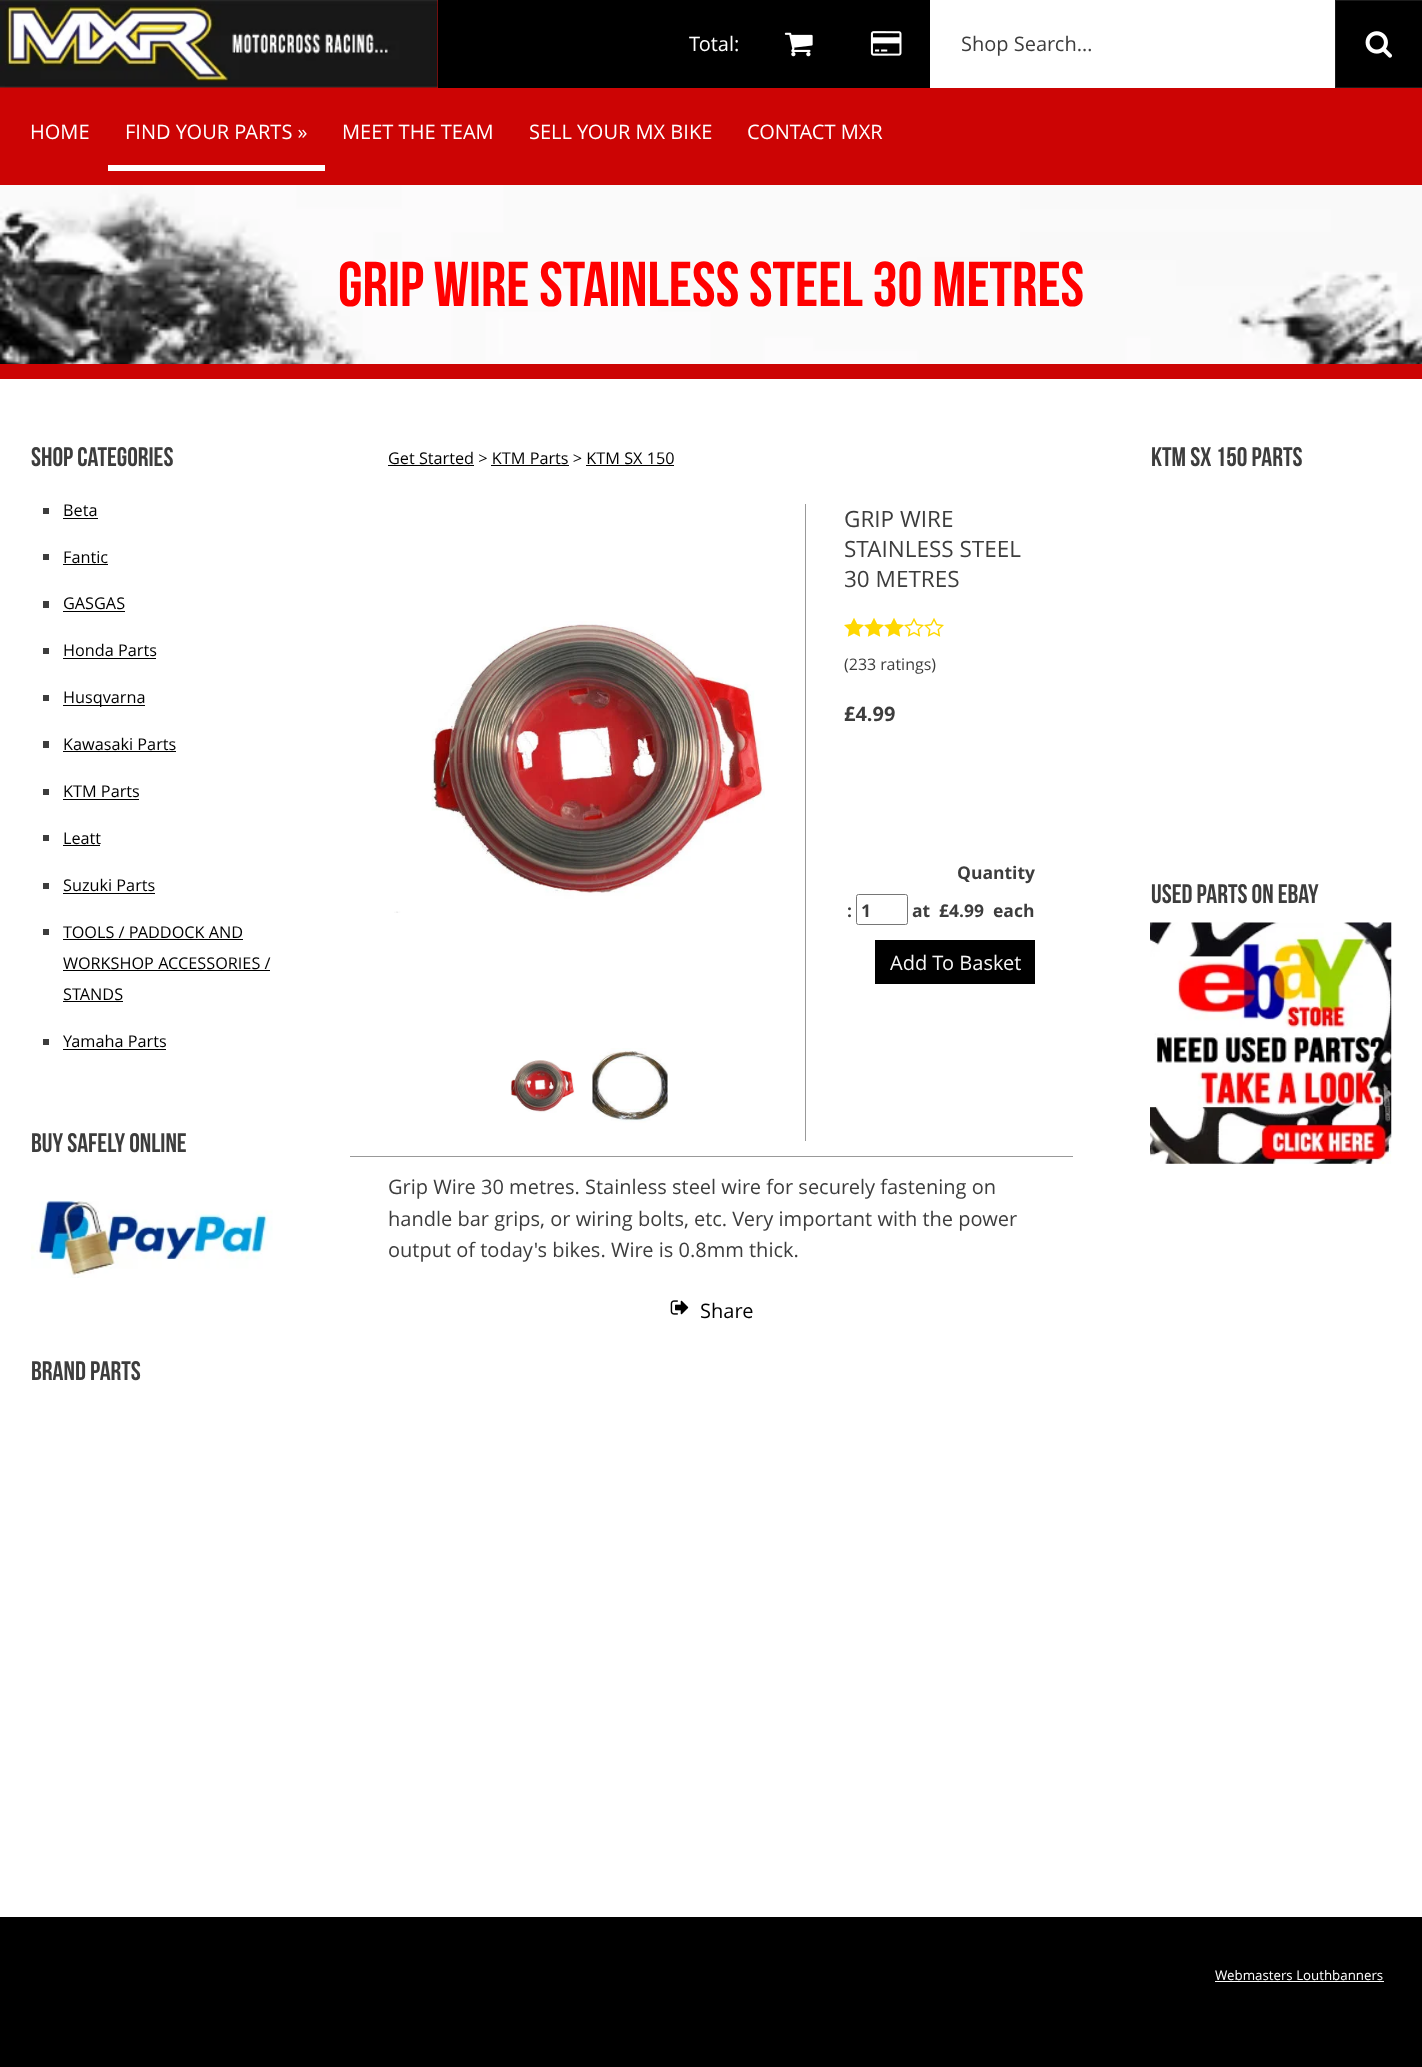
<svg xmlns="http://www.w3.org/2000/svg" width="1422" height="2067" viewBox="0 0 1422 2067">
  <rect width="100%" height="100%" fill="rgb(255,255,255)"/>
  <image x="0" y="185" width="1422" height="179" href="pic1.png"/>
  <rect x="0" y="0" width="438" height="88" fill="rgb(204,4,4)"/>
  <image x="0" y="0" width="438" height="88" href="pic2.png"/>
  <rect x="438" y="0" width="984" height="88" fill="rgb(0,0,0)"/>
  <text x="689" y="51" font-family="Open Sans" font-size="20" fill="rgb(255,255,255)">Total:</text>
  <image x="784" y="32" width="29" height="25" href="pic3.png"/>
  <image x="870" y="31" width="32" height="25" href="pic4.png"/>
  <rect x="930" y="0" width="405" height="88" fill="rgb(255,255,255)"/>
  <text x="961" y="51" font-family="Open Sans" font-size="20" fill="rgb(61,61,61)">Shop Search…</text>
  <rect x="1335.5" y="0.5" width="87" height="87" fill="none" stroke="rgb(26,26,26)"/>
  <image x="1365" y="31" width="27" height="27" href="pic5.png"/>
  <rect x="0" y="88" width="1422" height="97" fill="rgb(204,4,4)"/>
  <text x="30" y="139" font-family="Open Sans" font-size="20" fill="rgb(255,255,255)">HOME</text>
  <rect x="108" y="165" width="217" height="6" fill="rgb(255,255,255)"/>
  <g font-family="Open Sans" font-size="20" fill="rgb(255,255,255)">
    <text x="125" y="139">FIND YOUR PARTS »</text>
    <text x="342" y="139">MEET THE TEAM</text>
    <text x="529" y="139">SELL YOUR MX BIKE</text>
    <text x="747" y="139">CONTACT MXR</text>
  </g>
  <rect x="0" y="364" width="1422" height="15" fill="rgb(204,4,4)"/>
  <text x="31" y="466" font-family="Bebas Neue" font-size="26.75" fill="rgb(61,61,61)">Shop Categories</text>
  <rect x="43" y="508" width="6" height="6" fill="rgb(61,61,61)"/>
  <text x="63" y="516" font-family="Open Sans" font-size="16.25" fill="rgb(0,0,0)">Beta</text>
  <rect x="63" y="518" width="35" height="1" fill="rgb(0,0,0)"/>
  <rect x="43" y="554" width="6" height="6" fill="rgb(61,61,61)"/>
  <text x="63" y="563" font-family="Open Sans" font-size="16.25" fill="rgb(0,0,0)">Fantic</text>
  <rect x="63" y="564" width="45" height="1" fill="rgb(0,0,0)"/>
  <rect x="43" y="601" width="6" height="7" fill="rgb(61,61,61)"/>
  <text x="63" y="609" font-family="Open Sans" font-size="16.25" fill="rgb(0,0,0)">GASGAS</text>
  <rect x="63" y="611" width="62" height="1" fill="rgb(0,0,0)"/>
  <rect x="43" y="648" width="6" height="6" fill="rgb(61,61,61)"/>
  <text x="63" y="656" font-family="Open Sans" font-size="16.25" fill="rgb(0,0,0)">Honda Parts</text>
  <rect x="63" y="658" width="93" height="1" fill="rgb(0,0,0)"/>
  <rect x="43" y="695" width="6" height="6" fill="rgb(61,61,61)"/>
  <rect x="63" y="705" width="82" height="1" fill="rgb(0,0,0)"/>
  <text x="63" y="703" font-family="Open Sans" font-size="16.25" fill="rgb(0,0,0)">Husqvarna</text>
  <rect x="43" y="741" width="6" height="7" fill="rgb(61,61,61)"/>
  <text x="63" y="750" font-family="Open Sans" font-size="16.25" fill="rgb(0,0,0)">Kawasaki Parts</text>
  <rect x="63" y="751" width="113" height="1" fill="rgb(0,0,0)"/>
  <rect x="43" y="789" width="6" height="6" fill="rgb(61,61,61)"/>
  <text x="63" y="797" font-family="Open Sans" font-size="16.25" fill="rgb(0,0,0)">KTM Parts</text>
  <rect x="63" y="799" width="76" height="1" fill="rgb(0,0,0)"/>
  <rect x="43" y="835" width="6" height="6" fill="rgb(61,61,61)"/>
  <text x="63" y="844" font-family="Open Sans" font-size="16.25" fill="rgb(0,0,0)">Leatt</text>
  <rect x="63" y="845" width="37" height="1" fill="rgb(0,0,0)"/>
  <rect x="43" y="883" width="6" height="6" fill="rgb(61,61,61)"/>
  <text x="63" y="891" font-family="Open Sans" font-size="16.25" fill="rgb(0,0,0)">Suzuki Parts</text>
  <rect x="63" y="893" width="92" height="1" fill="rgb(0,0,0)"/>
  <rect x="43" y="929" width="6" height="6" fill="rgb(61,61,61)"/>
  <text x="63" y="938" font-family="Open Sans" font-size="16.25" fill="rgb(0,0,0)">TOOLS / PADDOCK AND</text>
  <rect x="63" y="939" width="180" height="1" fill="rgb(0,0,0)"/>
  <text x="63" y="969" font-family="Open Sans" font-size="16.25" fill="rgb(0,0,0)">WORKSHOP ACCESSORIES /</text>
  <rect x="63" y="970" width="207" height="1" fill="rgb(0,0,0)"/>
  <text x="63" y="1000" font-family="Open Sans" font-size="16.25" fill="rgb(0,0,0)">STANDS</text>
  <rect x="63" y="1001" width="60" height="1" fill="rgb(0,0,0)"/>
  <rect x="43" y="1039" width="6" height="6" fill="rgb(61,61,61)"/>
  <text x="63" y="1047" font-family="Open Sans" font-size="16.25" fill="rgb(0,0,0)">Yamaha Parts</text>
  <rect x="63" y="1049" width="103" height="1" fill="rgb(0,0,0)"/>
  <text x="31" y="1152" font-family="Bebas Neue" font-size="26.75" fill="rgb(61,61,61)">Buy safely online</text>
  <image x="31" y="1200" width="242" height="78" href="pic6.png"/>
  <text x="31" y="1380" font-family="Bebas Neue" font-size="26.75" fill="rgb(61,61,61)">Brand Parts</text>
  <text x="338" y="306" font-family="Bebas Neue" font-size="63.1" fill="rgb(255,0,0)">GRIP WIRE STAINLESS STEEL 30 METRES</text>
  <text x="388" y="464" font-family="Open Sans" font-size="16.25" fill="rgb(0,0,0)">Get Started &gt; KTM Parts &gt; KTM SX 150</text>
  <rect x="388" y="465" width="86" height="1" fill="rgb(0,0,0)"/>
  <rect x="491" y="465" width="78" height="1" fill="rgb(0,0,0)"/>
  <rect x="586" y="465" width="88" height="1" fill="rgb(0,0,0)"/>
  <rect x="805" y="504" width="1" height="637" fill="rgb(153,153,153)"/>
  <image x="394" y="621" width="371" height="292" href="pic7.png"/>
  <image x="510" y="1060" width="65" height="53" href="pic8.png"/>
  <image x="592" y="1048" width="76" height="75" href="pic9.png"/>
  <g font-family="Open Sans" font-size="22.5" fill="rgb(61,61,61)">
    <text>
      <tspan x="844" y="527">GRIP WIRE</tspan>
      <tspan x="844" y="557">STAINLESS STEEL</tspan>
      <tspan x="844" y="587">30 METRES</tspan>
    </text>
  </g>
  <text x="844" y="636" font-family="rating" font-size="20" fill="rgb(255,215,0)">★★★☆☆</text>
  <text x="844" y="670" font-family="Open Sans" font-size="16" fill="rgb(61,61,61)">(233 ratings)</text>
  <text x="844" y="721" font-family="Open Sans" font-size="20" font-weight="bold" fill="rgb(61,61,61)">£4.99</text>
  <g font-family="Open Sans" font-size="17.5" font-weight="bold" fill="rgb(61,61,61)">
    <text x="957" y="879">Quantity</text>
    <text x="847" y="917">:</text>
  </g>
  <rect x="856.5" y="894.5" width="51" height="30" rx="2" fill="none" stroke="rgb(118,118,118)"/>
  <g font-family="Open Sans" font-size="17.5" font-weight="bold" fill="rgb(61,61,61)">
    <text x="861" y="917">1</text>
    <text x="912" y="917">at</text>
    <text x="939" y="917">£4.99</text>
    <text x="993" y="917">each</text>
  </g>
  <rect x="875" y="940" width="160" height="44" fill="rgb(0,0,0)"/>
  <text x="890" y="970" font-family="Open Sans" font-size="20" fill="rgb(247,247,247)">Add To Basket</text>
  <rect x="350" y="1156" width="723" height="1" fill="rgb(153,153,153)"/>
  <g font-family="Open Sans" font-size="20" fill="rgb(61,61,61)">
    <text>
      <tspan x="388" y="1194">Grip Wire 30 metres. Stainless steel wire for securely fastening on</tspan>
      <tspan x="388" y="1226">handle bar grips, or wiring bolts, etc. Very important with the power</tspan>
      <tspan x="388" y="1257">output of today's bikes. Wire is 0.8mm thick.</tspan>
    </text>
  </g>
  <image x="670" y="1300" width="19" height="15" href="pic10.png"/>
  <text x="700" y="1318" font-family="Open Sans" font-size="20" fill="rgb(0,0,0)">Share</text>
  <g font-family="Bebas Neue" font-size="26.75" fill="rgb(61,61,61)">
    <text x="1151" y="466">KTM SX 150 PARTS</text>
    <text x="1151" y="903">Used parts on Ebay</text>
  </g>
  <image x="1150" y="922" width="242" height="242" href="pic11.png"/>
  <rect x="0" y="1917" width="1422" height="150" fill="rgb(0,0,0)"/>
  <text x="1215" y="1980" font-family="Open Sans" font-size="13.3" fill="rgb(255,255,255)">Webmasters Louthbanners</text>
  <rect x="1215" y="1981" width="169" height="1" fill="rgb(255,255,255)"/>
</svg>
